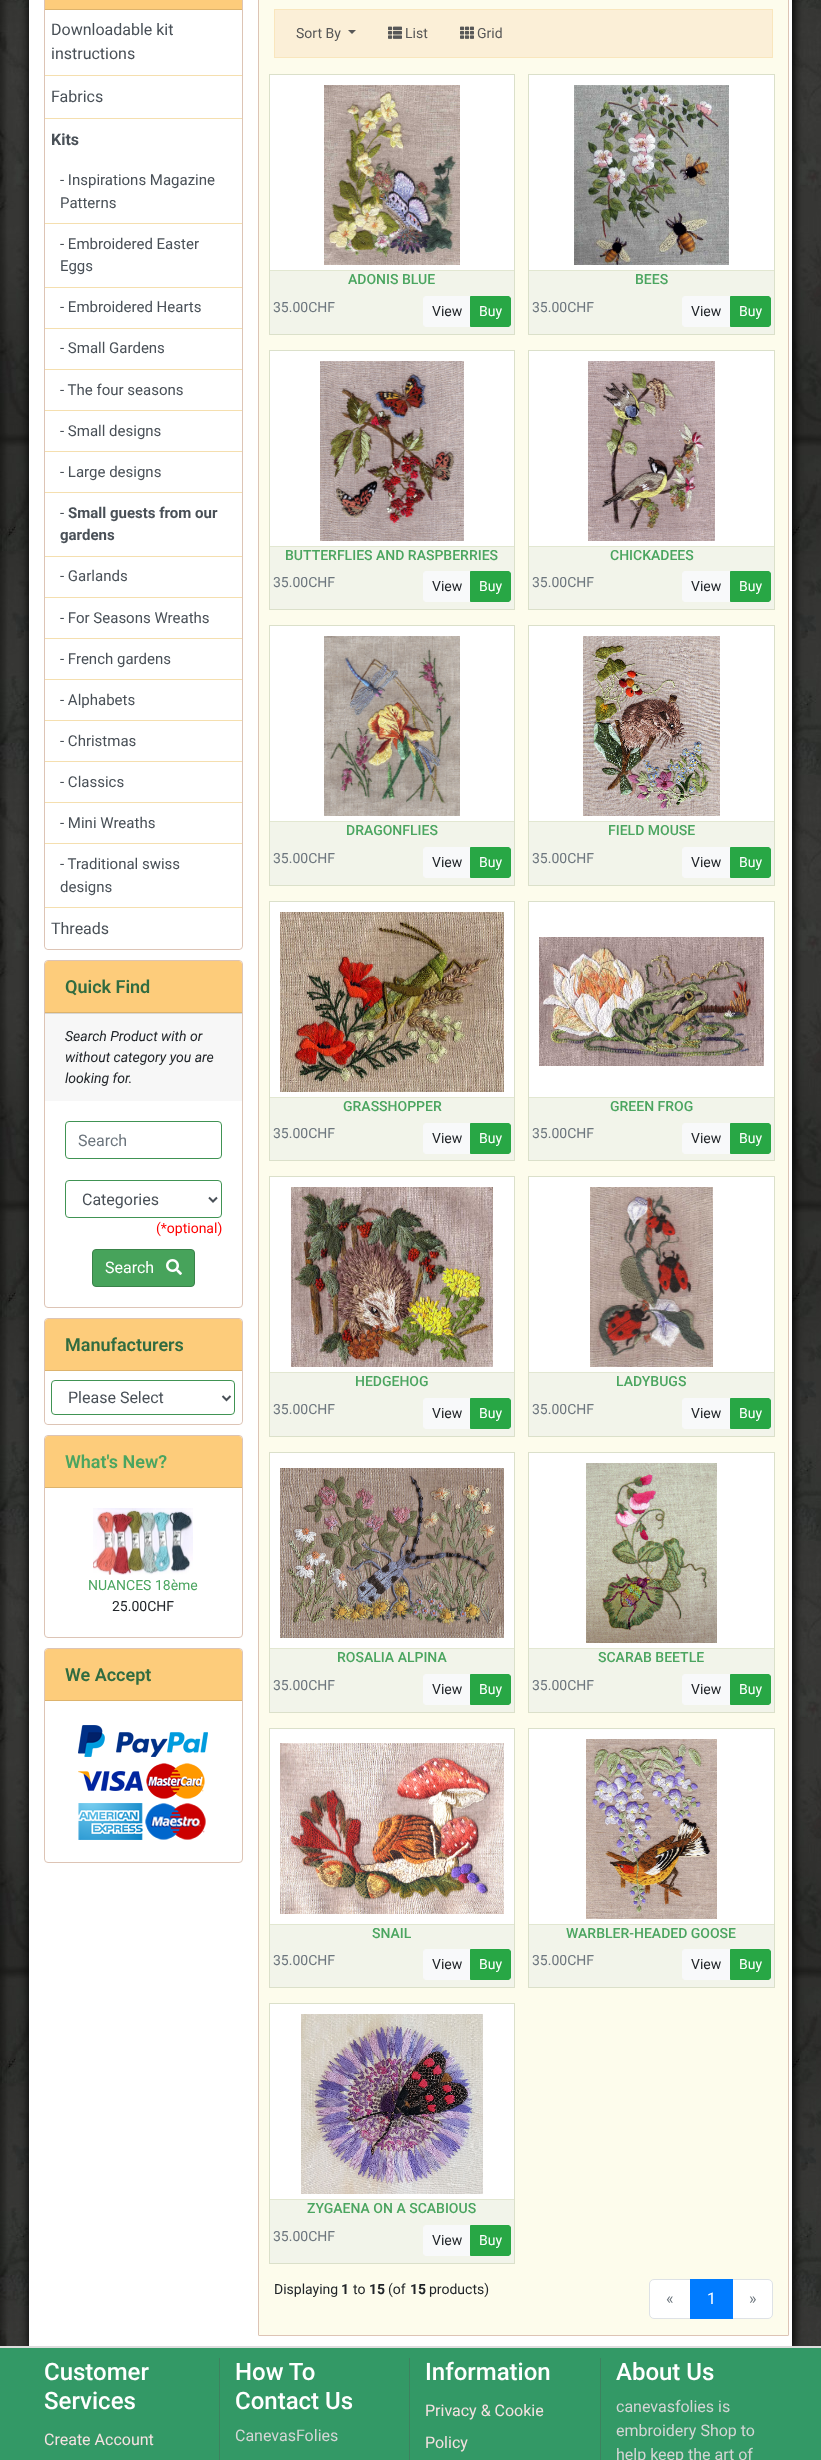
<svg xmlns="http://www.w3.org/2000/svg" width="821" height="2460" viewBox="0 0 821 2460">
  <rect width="100%" height="100%" fill="rgb(255,255,255)"/>
  <image x="0" y="0" width="821" height="2346" href="pic1.png"/>
  <rect x="29" y="-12" width="765" height="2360" fill="rgb(1,1,1)" filter="blur(4px)"/>
  <rect x="29" y="0" width="763" height="2346" fill="rgb(255,255,255)"/>
  <rect x="44.5" y="-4.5" width="198" height="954" rx="3.5" fill="none" stroke="rgb(221,196,181)"/>
  <rect x="45" y="0" width="197" height="9" fill="rgb(253,204,123)"/>
  <rect x="45" y="9" width="197" height="1" fill="rgb(221,179,108)"/>
  <g font-family="Roboto" font-size="16" fill="rgb(73,80,87)">
    <text>
      <tspan x="51" y="35">Downloadable kit</tspan>
      <tspan x="51" y="59">instructions</tspan>
    </text>
  </g>
  <rect x="45" y="75" width="197" height="1" fill="rgb(245,223,175)"/>
  <text x="51" y="102" font-family="Roboto" font-size="16" fill="rgb(73,80,87)">Fabrics</text>
  <rect x="45" y="118" width="197" height="1" fill="rgb(245,223,175)"/>
  <text x="51" y="145" font-family="Roboto" font-size="16" font-weight="bold" fill="rgb(73,80,87)">Kits</text>
  <g font-family="Roboto" font-size="15" fill="rgb(73,80,87)">
    <text>
      <tspan x="60" y="185">- Inspirations Magazine</tspan>
      <tspan x="60" y="208">Patterns</tspan>
    </text>
  </g>
  <rect x="45" y="223" width="197" height="1" fill="rgb(245,223,175)"/>
  <g font-family="Roboto" font-size="15" fill="rgb(73,80,87)">
    <text>
      <tspan x="60" y="249">- Embroidered Easter</tspan>
      <tspan x="60" y="271">Eggs</tspan>
    </text>
  </g>
  <rect x="45" y="287" width="197" height="1" fill="rgb(245,223,175)"/>
  <text x="60" y="312" font-family="Roboto" font-size="15" fill="rgb(73,80,87)">- Embroidered Hearts</text>
  <rect x="45" y="328" width="197" height="1" fill="rgb(245,223,175)"/>
  <text x="60" y="353" font-family="Roboto" font-size="15" fill="rgb(73,80,87)">- Small Gardens</text>
  <rect x="45" y="369" width="197" height="1" fill="rgb(245,223,175)"/>
  <text x="60" y="395" font-family="Roboto" font-size="15" fill="rgb(73,80,87)">- The four seasons</text>
  <rect x="45" y="410" width="197" height="1" fill="rgb(245,223,175)"/>
  <text x="60" y="436" font-family="Roboto" font-size="15" fill="rgb(73,80,87)">- Small designs</text>
  <rect x="45" y="451" width="197" height="1" fill="rgb(245,223,175)"/>
  <text x="60" y="477" font-family="Roboto" font-size="15" fill="rgb(73,80,87)">- Large designs</text>
  <rect x="45" y="492" width="197" height="1" fill="rgb(245,223,175)"/>
  <text x="60" y="518" font-family="Roboto" font-size="15" fill="rgb(73,80,87)">-</text>
  <g font-family="Roboto" font-size="15" font-weight="bold" fill="rgb(73,80,87)">
    <text x="68" y="518">Small guests from our</text>
    <text x="60" y="540">gardens</text>
  </g>
  <rect x="45" y="556" width="197" height="1" fill="rgb(245,223,175)"/>
  <text x="60" y="581" font-family="Roboto" font-size="15" fill="rgb(73,80,87)">- Garlands</text>
  <rect x="45" y="597" width="197" height="1" fill="rgb(245,223,175)"/>
  <text x="60" y="623" font-family="Roboto" font-size="15" fill="rgb(73,80,87)">- For Seasons Wreaths</text>
  <rect x="45" y="638" width="197" height="1" fill="rgb(245,223,175)"/>
  <text x="60" y="664" font-family="Roboto" font-size="15" fill="rgb(73,80,87)">- French gardens</text>
  <rect x="45" y="679" width="197" height="1" fill="rgb(245,223,175)"/>
  <text x="60" y="705" font-family="Roboto" font-size="15" fill="rgb(73,80,87)">- Alphabets</text>
  <rect x="45" y="720" width="197" height="1" fill="rgb(245,223,175)"/>
  <text x="60" y="746" font-family="Roboto" font-size="15" fill="rgb(73,80,87)">- Christmas</text>
  <rect x="45" y="761" width="197" height="1" fill="rgb(245,223,175)"/>
  <text x="60" y="787" font-family="Roboto" font-size="15" fill="rgb(73,80,87)">- Classics</text>
  <rect x="45" y="802" width="197" height="1" fill="rgb(245,223,175)"/>
  <text x="60" y="828" font-family="Roboto" font-size="15" fill="rgb(73,80,87)">- Mini Wreaths</text>
  <rect x="45" y="843" width="197" height="1" fill="rgb(245,223,175)"/>
  <g font-family="Roboto" font-size="15" fill="rgb(73,80,87)">
    <text>
      <tspan x="60" y="869">- Traditional swiss</tspan>
      <tspan x="60" y="892">designs</tspan>
    </text>
  </g>
  <path d="M45 907H242V945C242 947 240 949 238 949H49C47 949 45 947 45 945Z" fill="rgb(255,255,255)"/>
  <rect x="45" y="907" width="197" height="1" fill="rgb(245,223,175)"/>
  <text x="51" y="934" font-family="Roboto" font-size="16" fill="rgb(73,80,87)">Threads</text>
  <rect x="44.5" y="960.5" width="198" height="347" rx="3.5" fill="none" stroke="rgb(221,196,181)"/>
  <path d="M48 961H239C240.5 961 242 962.5 242 964V1013H45V964C45 962.5 46.5 961 48 961Z" fill="rgb(253,204,123)"/>
  <rect x="45" y="1012" width="197" height="1" fill="rgb(221,179,108)"/>
  <text x="65" y="993" font-family="Roboto" font-size="18" font-weight="600" fill="rgb(49,108,64)">Quick Find</text>
  <rect x="45" y="1014" width="197" height="87" fill="rgb(247,247,247)"/>
  <rect x="45" y="1013" width="197" height="1" fill="rgb(216,216,216)"/>
  <g font-family="Roboto" font-size="14" font-style="italic" fill="rgb(33,37,41)">
    <text>
      <tspan x="65" y="1041">Search Product with or</tspan>
      <tspan x="65" y="1062">without category you are</tspan>
      <tspan x="65" y="1083">looking for.</tspan>
    </text>
  </g>
  <rect x="65.5" y="1121.5" width="156" height="37" rx="3.5" fill="none" stroke="rgb(64,147,83)"/>
  <text x="78" y="1146" font-family="Roboto" font-size="16" fill="rgb(108,117,125)">Search</text>
  <rect x="65.5" y="1180.5" width="156" height="37" rx="3.5" fill="none" stroke="rgb(64,147,83)"/>
  <path d="M209 1197.5L213 1201.5L217 1197.5" fill="none" stroke="rgb(73,80,87)" stroke-width="2"/>
  <text x="82" y="1205" font-family="Roboto" font-size="16" fill="rgb(73,80,87)">Categories</text>
  <text x="156" y="1233" font-family="Roboto" font-size="14" fill="rgb(255,0,0)">(*optional)</text>
  <rect x="92.5" y="1249.5" width="102" height="37" rx="3.5" fill="rgb(71,163,91)" stroke="rgb(57,130,73)"/>
  <text x="105" y="1273" font-family="Roboto" font-size="16" fill="rgb(255,255,255)">Search</text>
  <image x="166" y="1259" width="16" height="16" href="pic2.png"/>
  <rect x="44.5" y="1318.5" width="198" height="106" rx="3.5" fill="none" stroke="rgb(221,196,181)"/>
  <path d="M48 1319H239C240.5 1319 242 1320.5 242 1322V1371H45V1322C45 1320.5 46.5 1319 48 1319Z" fill="rgb(253,204,123)"/>
  <rect x="45" y="1370" width="197" height="1" fill="rgb(221,179,108)"/>
  <text x="65" y="1351" font-family="Roboto" font-size="18" font-weight="600" fill="rgb(49,108,64)">Manufacturers</text>
  <path d="M45 1371H242V1420C242 1422 240 1424 238 1424H49C47 1424 45 1422 45 1420Z" fill="rgb(255,255,255)"/>
  <rect x="51.5" y="1380.5" width="183" height="34" rx="3.5" fill="none" stroke="rgb(64,147,83)"/>
  <path d="M222.5 1396L226.5 1400L230.5 1396" fill="none" stroke="rgb(73,80,87)" stroke-width="2"/>
  <text x="68" y="1403" font-family="Roboto" font-size="16" fill="rgb(73,80,87)">Please Select</text>
  <rect x="44.5" y="1435.5" width="198" height="202" rx="3.5" fill="none" stroke="rgb(221,196,181)"/>
  <path d="M48 1436H239C240.5 1436 242 1437.5 242 1439V1488H45V1439C45 1437.5 46.5 1436 48 1436Z" fill="rgb(253,204,123)"/>
  <rect x="45" y="1487" width="197" height="1" fill="rgb(221,179,108)"/>
  <text x="65" y="1468" font-family="Roboto" font-size="18" font-weight="600" fill="rgb(75,165,96)">What's New?</text>
  <image x="93" y="1508" width="100" height="67" href="pic3.png"/>
  <text x="88" y="1590" font-family="Roboto" font-size="14" fill="rgb(75,165,96)">NUANCES 18ème</text>
  <text x="112" y="1611" font-family="Roboto" font-size="14" fill="rgb(33,37,41)">25.00CHF</text>
  <rect x="44.5" y="1648.5" width="198" height="214" rx="3.5" fill="none" stroke="rgb(221,196,181)"/>
  <path d="M48 1649H239C240.5 1649 242 1650.5 242 1652V1701H45V1652C45 1650.5 46.5 1649 48 1649Z" fill="rgb(253,204,123)"/>
  <rect x="45" y="1700" width="197" height="1" fill="rgb(221,179,108)"/>
  <text x="65" y="1681" font-family="Roboto" font-size="18" font-weight="600" fill="rgb(49,108,64)">We Accept</text>
  <image x="78" y="1725" width="130" height="32" href="pic4.png"/>
  <image x="78" y="1771" width="65" height="20" href="pic5.png"/>
  <image x="146" y="1763" width="59" height="36" href="pic6.png"/>
  <image x="78" y="1803" width="65" height="37" href="pic7.png"/>
  <image x="145" y="1803" width="61" height="37" href="pic8.png"/>
  <rect x="258.5" y="-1.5" width="530" height="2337" rx="0.5" fill="rgb(253,252,236)" stroke="rgb(221,196,181)"/>
  <rect x="274.5" y="9.5" width="498" height="48" fill="rgb(251,239,215)" stroke="rgb(249,230,189)"/>
  <text x="296" y="38" font-family="Roboto" font-size="14" fill="rgb(87,87,87)">Sort By</text>
  <path d="M348 30H356L352 34Z" fill="rgb(87,87,87)"/>
  <image x="388" y="26" width="14" height="13" href="pic9.png"/>
  <text x="405" y="38" font-family="Roboto" font-size="14" fill="rgb(87,87,87)">List</text>
  <image x="460" y="26" width="14" height="13" href="pic10.png"/>
  <text x="477" y="38" font-family="Roboto" font-size="14" fill="rgb(87,87,87)">Grid</text>
  <rect x="270" y="75" width="244" height="195" fill="rgb(255,255,255)"/>
  <rect x="269.5" y="74.5" width="245" height="260" fill="none" stroke="rgb(219,224,202)"/>
  <image x="324" y="85" width="136" height="180" href="pic11.png"/>
  <rect x="270" y="271" width="244" height="63" fill="rgb(242,244,234)"/>
  <rect x="270" y="270" width="244" height="1" fill="rgb(226,231,209)"/>
  <text x="348" y="284" font-family="Roboto" font-size="14" font-weight="500" fill="rgb(75,165,96)">ADONIS BLUE</text>
  <text x="273" y="312" font-family="Roboto" font-size="14" fill="rgb(108,117,125)">35.00CHF</text>
  <path d="M426 296.5H470.5V326.5H426C424.5 326.5 423.5 325.5 423.5 324V299C423.5 297.5 424.5 296.5 426 296.5Z" fill="rgb(248,249,250)" stroke="rgb(248,249,250)"/>
  <text x="432" y="316" font-family="Roboto" font-size="14" fill="rgb(33,37,41)">View</text>
  <path d="M470.5 296.5H508C509.5 296.5 510.5 297.5 510.5 299V324C510.5 325.5 509.5 326.5 508 326.5H470.5Z" fill="rgb(40,167,69)" stroke="rgb(40,167,69)"/>
  <text x="479" y="316" font-family="Roboto" font-size="14" fill="rgb(255,255,255)">Buy</text>
  <rect x="529" y="75" width="245" height="195" fill="rgb(255,255,255)"/>
  <rect x="528.5" y="74.5" width="246" height="260" fill="none" stroke="rgb(219,224,202)"/>
  <image x="574" y="85" width="155" height="180" href="pic12.png"/>
  <rect x="529" y="271" width="245" height="63" fill="rgb(242,244,234)"/>
  <rect x="529" y="270" width="245" height="1" fill="rgb(226,231,209)"/>
  <text x="635" y="284" font-family="Roboto" font-size="14" font-weight="500" fill="rgb(75,165,96)">BEES</text>
  <text x="532" y="312" font-family="Roboto" font-size="14" fill="rgb(108,117,125)">35.00CHF</text>
  <path d="M685 296.5H730.5V326.5H685C683.5 326.5 682.5 325.5 682.5 324V299C682.5 297.5 683.5 296.5 685 296.5Z" fill="rgb(248,249,250)" stroke="rgb(248,249,250)"/>
  <text x="691" y="316" font-family="Roboto" font-size="14" fill="rgb(33,37,41)">View</text>
  <path d="M730.5 296.5H768C769.5 296.5 770.5 297.5 770.5 299V324C770.5 325.5 769.5 326.5 768 326.5H730.5Z" fill="rgb(40,167,69)" stroke="rgb(40,167,69)"/>
  <text x="739" y="316" font-family="Roboto" font-size="14" fill="rgb(255,255,255)">Buy</text>
  <rect x="270" y="351" width="244" height="195" fill="rgb(255,255,255)"/>
  <rect x="269.5" y="350.5" width="245" height="259" fill="none" stroke="rgb(219,224,202)"/>
  <image x="320" y="361" width="144" height="180" href="pic13.png"/>
  <rect x="270" y="547" width="244" height="62" fill="rgb(242,244,234)"/>
  <rect x="270" y="546" width="244" height="1" fill="rgb(226,231,209)"/>
  <text x="285" y="560" font-family="Roboto" font-size="14" font-weight="500" fill="rgb(75,165,96)">BUTTERFLIES AND RASPBERRIES</text>
  <text x="273" y="587" font-family="Roboto" font-size="14" fill="rgb(108,117,125)">35.00CHF</text>
  <path d="M426 571.5H470.5V601.5H426C424.5 601.5 423.5 600.5 423.5 599V574C423.5 572.5 424.5 571.5 426 571.5Z" fill="rgb(248,249,250)" stroke="rgb(248,249,250)"/>
  <text x="432" y="591" font-family="Roboto" font-size="14" fill="rgb(33,37,41)">View</text>
  <path d="M470.5 571.5H508C509.5 571.5 510.5 572.5 510.5 574V599C510.5 600.5 509.5 601.5 508 601.5H470.5Z" fill="rgb(40,167,69)" stroke="rgb(40,167,69)"/>
  <text x="479" y="591" font-family="Roboto" font-size="14" fill="rgb(255,255,255)">Buy</text>
  <rect x="529" y="351" width="245" height="195" fill="rgb(255,255,255)"/>
  <rect x="528.5" y="350.5" width="246" height="259" fill="none" stroke="rgb(219,224,202)"/>
  <image x="588" y="361" width="127" height="180" href="pic14.png"/>
  <rect x="529" y="547" width="245" height="62" fill="rgb(242,244,234)"/>
  <rect x="529" y="546" width="245" height="1" fill="rgb(226,231,209)"/>
  <text x="610" y="560" font-family="Roboto" font-size="14" font-weight="500" fill="rgb(75,165,96)">CHICKADEES</text>
  <text x="532" y="587" font-family="Roboto" font-size="14" fill="rgb(108,117,125)">35.00CHF</text>
  <path d="M685 571.5H730.5V601.5H685C683.5 601.5 682.5 600.5 682.5 599V574C682.5 572.5 683.5 571.5 685 571.5Z" fill="rgb(248,249,250)" stroke="rgb(248,249,250)"/>
  <text x="691" y="591" font-family="Roboto" font-size="14" fill="rgb(33,37,41)">View</text>
  <path d="M730.5 571.5H768C769.5 571.5 770.5 572.5 770.5 574V599C770.5 600.5 769.5 601.5 768 601.5H730.5Z" fill="rgb(40,167,69)" stroke="rgb(40,167,69)"/>
  <text x="739" y="591" font-family="Roboto" font-size="14" fill="rgb(255,255,255)">Buy</text>
  <rect x="270" y="626" width="244" height="195" fill="rgb(255,255,255)"/>
  <rect x="269.5" y="625.5" width="245" height="260" fill="none" stroke="rgb(219,224,202)"/>
  <image x="324" y="636" width="136" height="180" href="pic15.png"/>
  <rect x="270" y="822" width="244" height="63" fill="rgb(242,244,234)"/>
  <rect x="270" y="821" width="244" height="1" fill="rgb(226,231,209)"/>
  <text x="346" y="835" font-family="Roboto" font-size="14" font-weight="500" fill="rgb(75,165,96)">DRAGONFLIES</text>
  <text x="273" y="863" font-family="Roboto" font-size="14" fill="rgb(108,117,125)">35.00CHF</text>
  <path d="M426 847.5H470.5V877.5H426C424.5 877.5 423.5 876.5 423.5 875V850C423.5 848.5 424.5 847.5 426 847.5Z" fill="rgb(248,249,250)" stroke="rgb(248,249,250)"/>
  <text x="432" y="867" font-family="Roboto" font-size="14" fill="rgb(33,37,41)">View</text>
  <path d="M470.5 847.5H508C509.5 847.5 510.5 848.5 510.5 850V875C510.5 876.5 509.5 877.5 508 877.5H470.5Z" fill="rgb(40,167,69)" stroke="rgb(40,167,69)"/>
  <text x="479" y="867" font-family="Roboto" font-size="14" fill="rgb(255,255,255)">Buy</text>
  <rect x="529" y="626" width="245" height="195" fill="rgb(255,255,255)"/>
  <rect x="528.5" y="625.5" width="246" height="260" fill="none" stroke="rgb(219,224,202)"/>
  <image x="583" y="636" width="137" height="180" href="pic16.png"/>
  <rect x="529" y="822" width="245" height="63" fill="rgb(242,244,234)"/>
  <rect x="529" y="821" width="245" height="1" fill="rgb(226,231,209)"/>
  <text x="608" y="835" font-family="Roboto" font-size="14" font-weight="500" fill="rgb(75,165,96)">FIELD MOUSE</text>
  <text x="532" y="863" font-family="Roboto" font-size="14" fill="rgb(108,117,125)">35.00CHF</text>
  <path d="M685 847.5H730.5V877.5H685C683.5 877.5 682.5 876.5 682.5 875V850C682.5 848.5 683.5 847.5 685 847.5Z" fill="rgb(248,249,250)" stroke="rgb(248,249,250)"/>
  <text x="691" y="867" font-family="Roboto" font-size="14" fill="rgb(33,37,41)">View</text>
  <path d="M730.5 847.5H768C769.5 847.5 770.5 848.5 770.5 850V875C770.5 876.5 769.5 877.5 768 877.5H730.5Z" fill="rgb(40,167,69)" stroke="rgb(40,167,69)"/>
  <text x="739" y="867" font-family="Roboto" font-size="14" fill="rgb(255,255,255)">Buy</text>
  <rect x="270" y="902" width="244" height="195" fill="rgb(255,255,255)"/>
  <rect x="269.5" y="901.5" width="245" height="259" fill="none" stroke="rgb(219,224,202)"/>
  <image x="280" y="912" width="224" height="180" href="pic17.png"/>
  <rect x="270" y="1098" width="244" height="62" fill="rgb(242,244,234)"/>
  <rect x="270" y="1097" width="244" height="1" fill="rgb(226,231,209)"/>
  <text x="343" y="1111" font-family="Roboto" font-size="14" font-weight="500" fill="rgb(75,165,96)">GRASSHOPPER</text>
  <text x="273" y="1138" font-family="Roboto" font-size="14" fill="rgb(108,117,125)">35.00CHF</text>
  <path d="M426 1123.5H470.5V1153.5H426C424.5 1153.5 423.5 1152.5 423.5 1151V1126C423.5 1124.5 424.5 1123.5 426 1123.5Z" fill="rgb(248,249,250)" stroke="rgb(248,249,250)"/>
  <text x="432" y="1143" font-family="Roboto" font-size="14" fill="rgb(33,37,41)">View</text>
  <path d="M470.5 1123.5H508C509.5 1123.5 510.5 1124.5 510.5 1126V1151C510.5 1152.5 509.5 1153.5 508 1153.5H470.5Z" fill="rgb(40,167,69)" stroke="rgb(40,167,69)"/>
  <text x="479" y="1143" font-family="Roboto" font-size="14" fill="rgb(255,255,255)">Buy</text>
  <rect x="529" y="902" width="245" height="195" fill="rgb(255,255,255)"/>
  <rect x="528.5" y="901.5" width="246" height="259" fill="none" stroke="rgb(219,224,202)"/>
  <image x="539" y="937" width="225" height="129" href="pic18.png"/>
  <rect x="529" y="1098" width="245" height="62" fill="rgb(242,244,234)"/>
  <rect x="529" y="1097" width="245" height="1" fill="rgb(226,231,209)"/>
  <text x="610" y="1111" font-family="Roboto" font-size="14" font-weight="500" fill="rgb(75,165,96)">GREEN FROG</text>
  <text x="532" y="1138" font-family="Roboto" font-size="14" fill="rgb(108,117,125)">35.00CHF</text>
  <path d="M685 1123.5H730.5V1153.5H685C683.5 1153.5 682.5 1152.5 682.5 1151V1126C682.5 1124.5 683.5 1123.5 685 1123.5Z" fill="rgb(248,249,250)" stroke="rgb(248,249,250)"/>
  <text x="691" y="1143" font-family="Roboto" font-size="14" fill="rgb(33,37,41)">View</text>
  <path d="M730.5 1123.5H768C769.5 1123.5 770.5 1124.5 770.5 1126V1151C770.5 1152.5 769.5 1153.5 768 1153.5H730.5Z" fill="rgb(40,167,69)" stroke="rgb(40,167,69)"/>
  <text x="739" y="1143" font-family="Roboto" font-size="14" fill="rgb(255,255,255)">Buy</text>
  <rect x="270" y="1177" width="244" height="195" fill="rgb(255,255,255)"/>
  <rect x="269.5" y="1176.5" width="245" height="260" fill="none" stroke="rgb(219,224,202)"/>
  <image x="291" y="1187" width="202" height="180" href="pic19.png"/>
  <rect x="270" y="1373" width="244" height="63" fill="rgb(242,244,234)"/>
  <rect x="270" y="1372" width="244" height="1" fill="rgb(226,231,209)"/>
  <text x="355" y="1386" font-family="Roboto" font-size="14" font-weight="500" fill="rgb(75,165,96)">HEDGEHOG</text>
  <text x="273" y="1414" font-family="Roboto" font-size="14" fill="rgb(108,117,125)">35.00CHF</text>
  <path d="M426 1398.5H470.5V1428.5H426C424.5 1428.5 423.5 1427.5 423.5 1426V1401C423.5 1399.5 424.5 1398.5 426 1398.5Z" fill="rgb(248,249,250)" stroke="rgb(248,249,250)"/>
  <text x="432" y="1418" font-family="Roboto" font-size="14" fill="rgb(33,37,41)">View</text>
  <path d="M470.5 1398.5H508C509.5 1398.5 510.5 1399.5 510.5 1401V1426C510.5 1427.5 509.5 1428.5 508 1428.5H470.5Z" fill="rgb(40,167,69)" stroke="rgb(40,167,69)"/>
  <text x="479" y="1418" font-family="Roboto" font-size="14" fill="rgb(255,255,255)">Buy</text>
  <rect x="529" y="1177" width="245" height="195" fill="rgb(255,255,255)"/>
  <rect x="528.5" y="1176.5" width="246" height="260" fill="none" stroke="rgb(219,224,202)"/>
  <image x="590" y="1187" width="123" height="180" href="pic20.png"/>
  <rect x="529" y="1373" width="245" height="63" fill="rgb(242,244,234)"/>
  <rect x="529" y="1372" width="245" height="1" fill="rgb(226,231,209)"/>
  <text x="616" y="1386" font-family="Roboto" font-size="14" font-weight="500" fill="rgb(75,165,96)">LADYBUGS</text>
  <text x="532" y="1414" font-family="Roboto" font-size="14" fill="rgb(108,117,125)">35.00CHF</text>
  <path d="M685 1398.5H730.5V1428.5H685C683.5 1428.5 682.5 1427.5 682.5 1426V1401C682.5 1399.5 683.5 1398.5 685 1398.5Z" fill="rgb(248,249,250)" stroke="rgb(248,249,250)"/>
  <text x="691" y="1418" font-family="Roboto" font-size="14" fill="rgb(33,37,41)">View</text>
  <path d="M730.5 1398.5H768C769.5 1398.5 770.5 1399.5 770.5 1401V1426C770.5 1427.5 769.5 1428.5 768 1428.5H730.5Z" fill="rgb(40,167,69)" stroke="rgb(40,167,69)"/>
  <text x="739" y="1418" font-family="Roboto" font-size="14" fill="rgb(255,255,255)">Buy</text>
  <rect x="270" y="1453" width="244" height="195" fill="rgb(255,255,255)"/>
  <rect x="269.5" y="1452.5" width="245" height="260" fill="none" stroke="rgb(219,224,202)"/>
  <image x="280" y="1468" width="224" height="170" href="pic21.png"/>
  <rect x="270" y="1649" width="244" height="63" fill="rgb(242,244,234)"/>
  <rect x="270" y="1648" width="244" height="1" fill="rgb(226,231,209)"/>
  <text x="337" y="1662" font-family="Roboto" font-size="14" font-weight="500" fill="rgb(75,165,96)">ROSALIA ALPINA</text>
  <text x="273" y="1690" font-family="Roboto" font-size="14" fill="rgb(108,117,125)">35.00CHF</text>
  <path d="M426 1674.5H470.5V1704.5H426C424.5 1704.5 423.5 1703.5 423.5 1702V1677C423.5 1675.5 424.5 1674.5 426 1674.5Z" fill="rgb(248,249,250)" stroke="rgb(248,249,250)"/>
  <text x="432" y="1694" font-family="Roboto" font-size="14" fill="rgb(33,37,41)">View</text>
  <path d="M470.5 1674.5H508C509.5 1674.5 510.5 1675.5 510.5 1677V1702C510.5 1703.5 509.5 1704.5 508 1704.5H470.5Z" fill="rgb(40,167,69)" stroke="rgb(40,167,69)"/>
  <text x="479" y="1694" font-family="Roboto" font-size="14" fill="rgb(255,255,255)">Buy</text>
  <rect x="529" y="1453" width="245" height="195" fill="rgb(255,255,255)"/>
  <rect x="528.5" y="1452.5" width="246" height="260" fill="none" stroke="rgb(219,224,202)"/>
  <image x="586" y="1463" width="131" height="180" href="pic22.png"/>
  <rect x="529" y="1649" width="245" height="63" fill="rgb(242,244,234)"/>
  <rect x="529" y="1648" width="245" height="1" fill="rgb(226,231,209)"/>
  <text x="598" y="1662" font-family="Roboto" font-size="14" font-weight="500" fill="rgb(75,165,96)">SCARAB BEETLE</text>
  <text x="532" y="1690" font-family="Roboto" font-size="14" fill="rgb(108,117,125)">35.00CHF</text>
  <path d="M685 1674.5H730.5V1704.5H685C683.5 1704.5 682.5 1703.5 682.5 1702V1677C682.5 1675.5 683.5 1674.5 685 1674.5Z" fill="rgb(248,249,250)" stroke="rgb(248,249,250)"/>
  <text x="691" y="1694" font-family="Roboto" font-size="14" fill="rgb(33,37,41)">View</text>
  <path d="M730.5 1674.5H768C769.5 1674.5 770.5 1675.5 770.5 1677V1702C770.5 1703.5 769.5 1704.5 768 1704.5H730.5Z" fill="rgb(40,167,69)" stroke="rgb(40,167,69)"/>
  <text x="739" y="1694" font-family="Roboto" font-size="14" fill="rgb(255,255,255)">Buy</text>
  <rect x="270" y="1729" width="244" height="195" fill="rgb(255,255,255)"/>
  <rect x="269.5" y="1728.5" width="245" height="259" fill="none" stroke="rgb(219,224,202)"/>
  <image x="280" y="1743" width="224" height="171" href="pic23.png"/>
  <rect x="270" y="1925" width="244" height="62" fill="rgb(242,244,234)"/>
  <rect x="270" y="1924" width="244" height="1" fill="rgb(226,231,209)"/>
  <text x="372" y="1938" font-family="Roboto" font-size="14" font-weight="500" fill="rgb(75,165,96)">SNAIL</text>
  <text x="273" y="1965" font-family="Roboto" font-size="14" fill="rgb(108,117,125)">35.00CHF</text>
  <path d="M426 1949.5H470.5V1979.5H426C424.5 1979.5 423.5 1978.5 423.5 1977V1952C423.5 1950.5 424.5 1949.5 426 1949.5Z" fill="rgb(248,249,250)" stroke="rgb(248,249,250)"/>
  <text x="432" y="1969" font-family="Roboto" font-size="14" fill="rgb(33,37,41)">View</text>
  <path d="M470.5 1949.5H508C509.5 1949.5 510.5 1950.5 510.5 1952V1977C510.5 1978.5 509.5 1979.5 508 1979.5H470.5Z" fill="rgb(40,167,69)" stroke="rgb(40,167,69)"/>
  <text x="479" y="1969" font-family="Roboto" font-size="14" fill="rgb(255,255,255)">Buy</text>
  <rect x="529" y="1729" width="245" height="195" fill="rgb(255,255,255)"/>
  <rect x="528.5" y="1728.5" width="246" height="259" fill="none" stroke="rgb(219,224,202)"/>
  <image x="586" y="1739" width="131" height="180" href="pic24.png"/>
  <rect x="529" y="1925" width="245" height="62" fill="rgb(242,244,234)"/>
  <rect x="529" y="1924" width="245" height="1" fill="rgb(226,231,209)"/>
  <text x="566" y="1938" font-family="Roboto" font-size="14" font-weight="500" fill="rgb(75,165,96)">WARBLER-HEADED GOOSE</text>
  <text x="532" y="1965" font-family="Roboto" font-size="14" fill="rgb(108,117,125)">35.00CHF</text>
  <path d="M685 1949.5H730.5V1979.5H685C683.5 1979.5 682.5 1978.5 682.5 1977V1952C682.5 1950.5 683.5 1949.5 685 1949.5Z" fill="rgb(248,249,250)" stroke="rgb(248,249,250)"/>
  <text x="691" y="1969" font-family="Roboto" font-size="14" fill="rgb(33,37,41)">View</text>
  <path d="M730.5 1949.5H768C769.5 1949.5 770.5 1950.5 770.5 1952V1977C770.5 1978.5 769.5 1979.5 768 1979.5H730.5Z" fill="rgb(40,167,69)" stroke="rgb(40,167,69)"/>
  <text x="739" y="1969" font-family="Roboto" font-size="14" fill="rgb(255,255,255)">Buy</text>
  <rect x="270" y="2004" width="244" height="195" fill="rgb(255,255,255)"/>
  <rect x="269.5" y="2003.5" width="245" height="260" fill="none" stroke="rgb(219,224,202)"/>
  <image x="301" y="2014" width="182" height="180" href="pic25.png"/>
  <rect x="270" y="2200" width="244" height="63" fill="rgb(242,244,234)"/>
  <rect x="270" y="2199" width="244" height="1" fill="rgb(226,231,209)"/>
  <text x="307" y="2213" font-family="Roboto" font-size="14" font-weight="500" fill="rgb(75,165,96)">ZYGAENA ON A SCABIOUS</text>
  <text x="273" y="2241" font-family="Roboto" font-size="14" fill="rgb(108,117,125)">35.00CHF</text>
  <path d="M426 2225.5H470.5V2255.5H426C424.5 2255.5 423.5 2254.5 423.5 2253V2228C423.5 2226.5 424.5 2225.5 426 2225.5Z" fill="rgb(248,249,250)" stroke="rgb(248,249,250)"/>
  <text x="432" y="2245" font-family="Roboto" font-size="14" fill="rgb(33,37,41)">View</text>
  <path d="M470.5 2225.5H508C509.5 2225.5 510.5 2226.5 510.5 2228V2253C510.5 2254.5 509.5 2255.5 508 2255.5H470.5Z" fill="rgb(40,167,69)" stroke="rgb(40,167,69)"/>
  <text x="479" y="2245" font-family="Roboto" font-size="14" fill="rgb(255,255,255)">Buy</text>
  <text x="274" y="2294" font-family="Roboto" font-size="14" fill="rgb(33,37,41)">Displaying</text>
  <text x="341" y="2294" font-family="Roboto" font-size="14" font-weight="bold" fill="rgb(33,37,41)">1</text>
  <text x="353" y="2294" font-family="Roboto" font-size="14" fill="rgb(33,37,41)">to</text>
  <text x="369" y="2294" font-family="Roboto" font-size="14" font-weight="bold" fill="rgb(33,37,41)">15</text>
  <text x="388" y="2294" font-family="Roboto" font-size="14" fill="rgb(33,37,41)">(of</text>
  <text x="410" y="2294" font-family="Roboto" font-size="14" font-weight="bold" fill="rgb(33,37,41)">15</text>
  <text x="429" y="2294" font-family="Roboto" font-size="14" fill="rgb(33,37,41)">products)</text>
  <path d="M654 2279.5H690.5V2318.5H654C651.5 2318.5 649.5 2316.5 649.5 2314V2284C649.5 2281.5 651.5 2279.5 654 2279.5Z" fill="rgb(255,255,255)" stroke="rgb(222,226,230)"/>
  <text x="666" y="2304" font-family="Roboto" font-size="16" fill="rgb(108,117,125)">«</text>
  <path d="M732.5 2279.5H768C770.5 2279.5 772.5 2281.5 772.5 2284V2314C772.5 2316.5 770.5 2318.5 768 2318.5H732.5Z" fill="rgb(255,255,255)" stroke="rgb(222,226,230)"/>
  <rect x="690" y="2279" width="43" height="40" fill="rgb(0,123,255)"/>
  <text x="707" y="2304" font-family="Roboto" font-size="16" fill="rgb(255,255,255)">1</text>
  <text x="749" y="2304" font-family="Roboto" font-size="16" fill="rgb(108,117,125)">»</text>
  <rect x="0" y="2348" width="821" height="112" fill="rgb(51,153,102)"/>
  <rect x="0" y="2346" width="821" height="2" fill="rgb(221,221,221)"/>
  <rect x="219" y="2358" width="1" height="102" fill="rgb(61,130,95)"/>
  <g font-family="Roboto" font-size="24" font-weight="500" fill="rgb(255,255,255)">
    <text>
      <tspan x="44" y="2380">Customer</tspan>
      <tspan x="44" y="2409">Services</tspan>
    </text>
  </g>
  <text x="44" y="2445" font-family="Roboto" font-size="16" fill="rgb(246,225,225)">Create Account</text>
  <rect x="409" y="2358" width="1" height="102" fill="rgb(61,130,95)"/>
  <g font-family="Roboto" font-size="24" font-weight="500" fill="rgb(255,255,255)">
    <text>
      <tspan x="235" y="2380">How To</tspan>
      <tspan x="235" y="2409">Contact Us</tspan>
    </text>
  </g>
  <text x="235" y="2441" font-family="Roboto" font-size="16" fill="rgb(213,213,213)">CanevasFolies</text>
  <rect x="600" y="2358" width="1" height="102" fill="rgb(61,130,95)"/>
  <text x="425" y="2380" font-family="Roboto" font-size="24" font-weight="500" fill="rgb(255,255,255)">Information</text>
  <g font-family="Roboto" font-size="16" fill="rgb(246,225,225)">
    <text x="425" y="2416">Privacy &amp; Cookie</text>
    <text x="425" y="2448">Policy</text>
  </g>
  <text x="616" y="2380" font-family="Roboto" font-size="24" font-weight="500" fill="rgb(255,255,255)">About Us</text>
  <g font-family="Roboto" font-size="16" fill="rgb(213,213,213)">
    <text>
      <tspan x="616" y="2412">canevasfolies is</tspan>
      <tspan x="616" y="2436">embroidery Shop to</tspan>
      <tspan x="616" y="2460">help keep the art of</tspan>
    </text>
  </g>
</svg>
